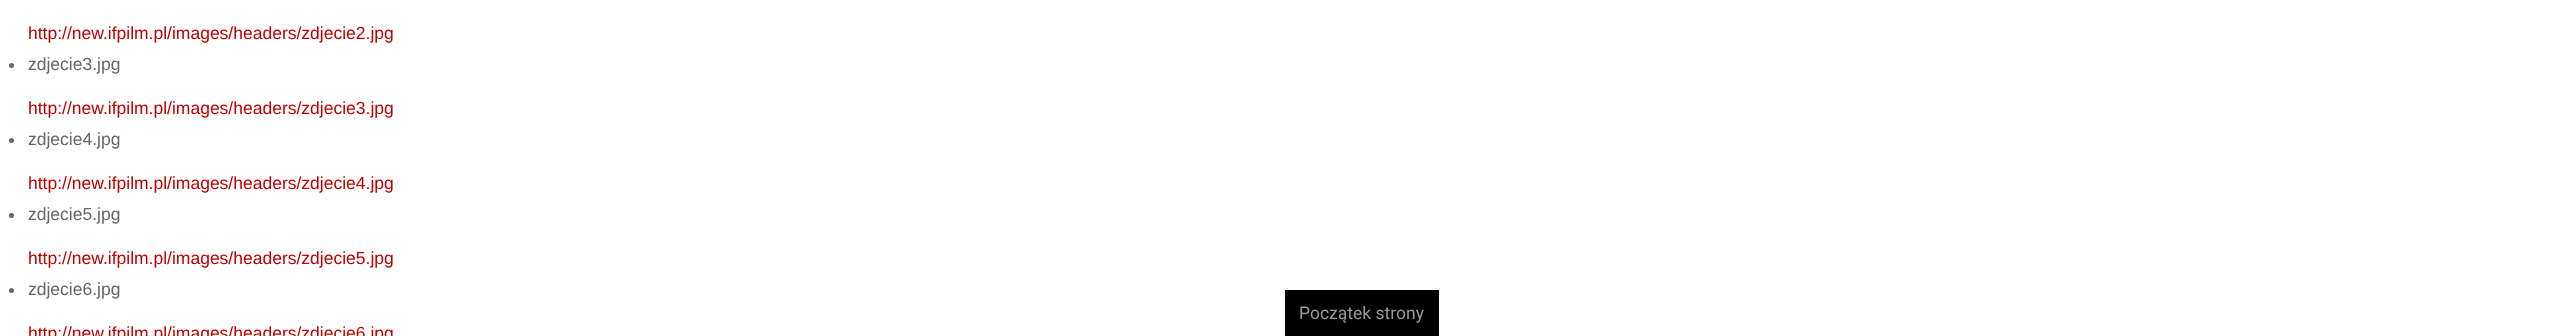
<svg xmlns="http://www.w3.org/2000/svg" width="2568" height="336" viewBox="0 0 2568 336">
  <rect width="100%" height="100%" fill="rgb(255,255,255)"/>
  <text x="28" y="39" font-family="Liberation Sans" font-size="17.5" fill="rgb(191,0,0)">http://new.ifpilm.pl/images/headers/zdjecie2.jpg</text>
  <circle cx="11.5" cy="65.5" r="2.5" fill="rgb(102,102,102)"/>
  <text x="28" y="70" font-family="Liberation Sans" font-size="17.5" fill="rgb(102,102,102)">zdjecie3.jpg</text>
  <text x="28" y="114" font-family="Liberation Sans" font-size="17.5" fill="rgb(191,0,0)">http://new.ifpilm.pl/images/headers/zdjecie3.jpg</text>
  <circle cx="11.5" cy="140.5" r="2.5" fill="rgb(102,102,102)"/>
  <text x="28" y="145" font-family="Liberation Sans" font-size="17.5" fill="rgb(102,102,102)">zdjecie4.jpg</text>
  <text x="28" y="189" font-family="Liberation Sans" font-size="17.5" fill="rgb(191,0,0)">http://new.ifpilm.pl/images/headers/zdjecie4.jpg</text>
  <circle cx="11.5" cy="215.5" r="2.5" fill="rgb(102,102,102)"/>
  <text x="28" y="220" font-family="Liberation Sans" font-size="17.5" fill="rgb(102,102,102)">zdjecie5.jpg</text>
  <text x="28" y="264" font-family="Liberation Sans" font-size="17.5" fill="rgb(191,0,0)">http://new.ifpilm.pl/images/headers/zdjecie5.jpg</text>
  <circle cx="11.5" cy="290.5" r="2.5" fill="rgb(102,102,102)"/>
  <text x="28" y="295" font-family="Liberation Sans" font-size="17.5" fill="rgb(102,102,102)">zdjecie6.jpg</text>
  <text x="28" y="339" font-family="Liberation Sans" font-size="17.5" fill="rgb(191,0,0)">http://new.ifpilm.pl/images/headers/zdjecie6.jpg</text>
  <rect x="1285" y="290" width="154" height="46" fill="rgb(0,0,0)"/>
  <text x="1299" y="319" font-family="Roboto" font-size="17.5" fill="rgb(153,153,153)">Początek strony</text>
</svg>
